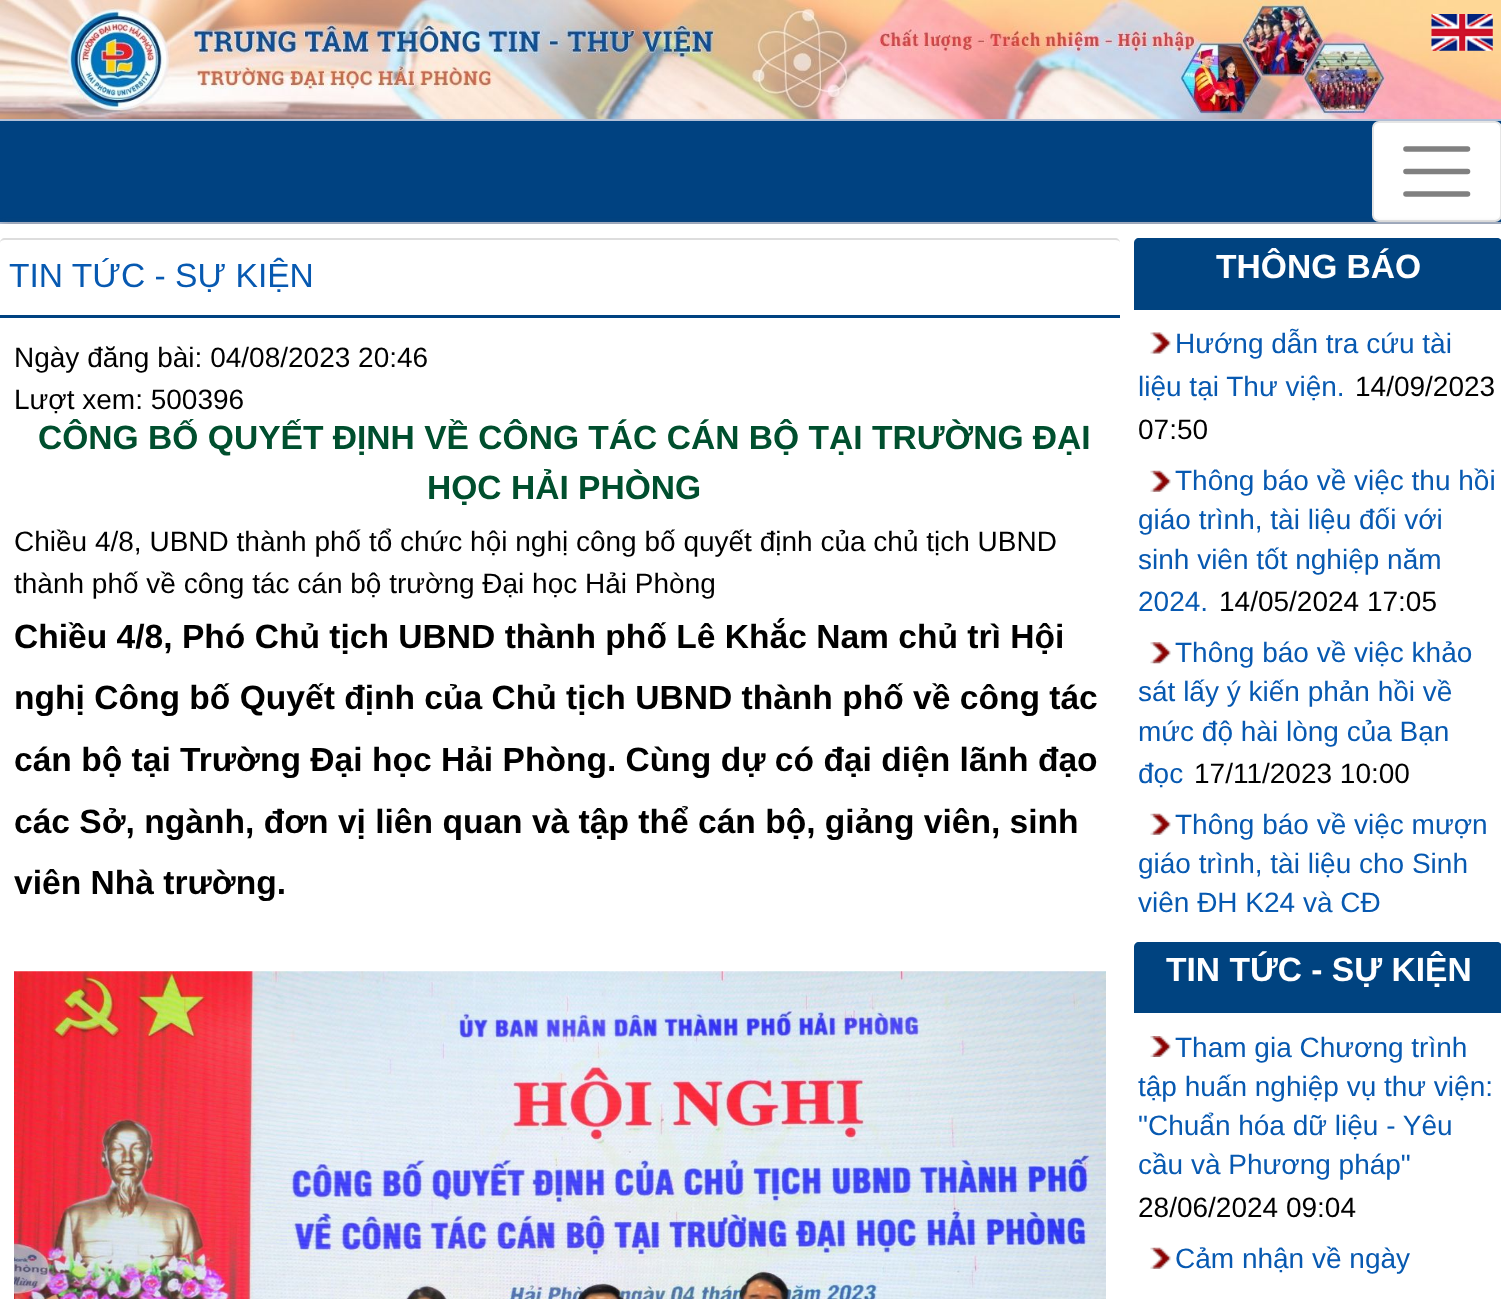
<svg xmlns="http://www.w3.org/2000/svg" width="1501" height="1299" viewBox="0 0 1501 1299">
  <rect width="100%" height="100%" fill="rgb(181,194,217)"/>
  <image x="0" y="0" width="1501" height="119" href="pic1.png"/>
  <image x="1431" y="14" width="62" height="37" href="pic2.png"/>
  <rect x="0" y="124" width="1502" height="102" fill="rgba(0,0,0,0.07)" filter="blur(3.5px)"/>
  <rect x="0" y="121" width="1501" height="101" fill="rgb(0,66,129)"/>
  <rect x="1372" y="121" width="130" height="101" rx="7" fill="rgb(255,255,255)"/>
  <rect x="1373" y="122" width="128" height="99" rx="6" fill="none" stroke="rgba(0,0,0,0.1)" stroke-width="2"/>
  <path d="M1406 149H1467.5M1406 171.5H1467.5M1406 194H1467.5" fill="none" stroke="rgb(128,128,128)" stroke-width="5.6" stroke-linecap="round"/>
  <rect x="4" y="228" width="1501" height="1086" fill="rgb(85,85,85)" filter="blur(5px)"/>
  <rect x="0" y="224" width="1501" height="1075" fill="rgb(255,255,255)"/>
  <path d="M5 238C2 238 0 240 0 243C0 241 2 240 5 240H1115C1118 240 1120 241 1120 243C1120 240 1118 238 1115 238Z" fill="rgb(221,221,221)"/>
  <rect x="0" y="315" width="1120" height="3" fill="rgb(0,66,129)"/>
  <text x="9" y="287" font-family="Liberation Sans" font-size="33.6" fill="rgb(7,89,177)">TIN TỨC - SỰ KIỆN</text>
  <g font-family="Liberation Sans" font-size="28" fill="rgb(0,0,0)">
    <text>
      <tspan x="14" y="367">Ngày đăng bài: 04/08/2023 20:46</tspan>
      <tspan x="14" y="409">Lượt xem: 500396</tspan>
    </text>
  </g>
  <g font-family="Liberation Sans" font-size="33.6" font-weight="bold" fill="rgb(0,79,46)">
    <text x="38" y="449">CÔNG BỐ QUYẾT ĐỊNH VỀ CÔNG TÁC CÁN BỘ TẠI TRƯỜNG ĐẠI</text>
    <text x="427" y="499">HỌC HẢI PHÒNG</text>
  </g>
  <g font-family="Liberation Sans" font-size="28" fill="rgb(0,0,0)">
    <text>
      <tspan x="14" y="551">Chiều 4/8, UBND thành phố tổ chức hội nghị công bố quyết định của chủ tịch UBND</tspan>
      <tspan x="14" y="593">thành phố về công tác cán bộ trường Đại học Hải Phòng</tspan>
    </text>
  </g>
  <g font-family="Liberation Sans" font-size="33.6" font-weight="bold" fill="rgb(0,0,0)">
    <text>
      <tspan x="14" y="648">Chiều 4/8, Phó Chủ tịch UBND thành phố Lê Khắc Nam chủ trì Hội</tspan>
      <tspan x="14" y="709">nghị Công bố Quyết định của Chủ tịch UBND thành phố về công tác</tspan>
      <tspan x="14" y="771">cán bộ tại Trường Đại học Hải Phòng. Cùng dự có đại diện lãnh đạo</tspan>
      <tspan x="14" y="833">các Sở, ngành, đơn vị liên quan và tập thể cán bộ, giảng viên, sinh</tspan>
      <tspan x="14" y="894">viên Nhà trường.</tspan>
    </text>
  </g>
  <image x="14" y="971" width="1092" height="328" href="pic3.png"/>
  <path d="M1139 238H1497C1500 238 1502 240 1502 243V310H1134V243C1134 240 1136 238 1139 238Z" fill="rgb(0,67,128)"/>
  <text x="1216" y="278" font-family="Liberation Sans" font-size="33.6" font-weight="bold" fill="rgb(255,255,255)">THÔNG BÁO</text>
  <image x="1150" y="332" width="21" height="22" href="pic4.png"/>
  <g font-family="Liberation Sans" font-size="28" fill="rgb(7,89,177)">
    <text x="1175" y="353">Hướng dẫn tra cứu tài</text>
    <text x="1138" y="396">liệu tại Thư viện.</text>
  </g>
  <g font-family="Liberation Sans" font-size="28" fill="rgb(0,0,0)">
    <text x="1355" y="396">14/09/2023</text>
    <text x="1138" y="439">07:50</text>
  </g>
  <image x="1150" y="470" width="21" height="22" href="pic5.png"/>
  <g font-family="Liberation Sans" font-size="28" fill="rgb(7,89,177)">
    <text x="1175" y="490">Thông báo về việc thu hồi</text>
    <text>
      <tspan x="1138" y="529">giáo trình, tài liệu đối với</tspan>
      <tspan x="1138" y="569">sinh viên tốt nghiệp năm</tspan>
      <tspan x="1138" y="611">2024.</tspan>
    </text>
  </g>
  <text x="1219" y="611" font-family="Liberation Sans" font-size="28" fill="rgb(0,0,0)">14/05/2024 17:05</text>
  <image x="1150" y="642" width="21" height="22" href="pic6.png"/>
  <g font-family="Liberation Sans" font-size="28" fill="rgb(7,89,177)">
    <text x="1175" y="662">Thông báo về việc khảo</text>
    <text>
      <tspan x="1138" y="701">sát lấy ý kiến phản hồi về</tspan>
      <tspan x="1138" y="741">mức độ hài lòng của Bạn</tspan>
      <tspan x="1138" y="783">đọc</tspan>
    </text>
  </g>
  <text x="1194" y="783" font-family="Liberation Sans" font-size="28" fill="rgb(0,0,0)">17/11/2023 10:00</text>
  <image x="1150" y="813" width="21" height="22" href="pic5.png"/>
  <g font-family="Liberation Sans" font-size="28" fill="rgb(7,89,177)">
    <text x="1175" y="834">Thông báo về việc mượn</text>
    <text>
      <tspan x="1138" y="873">giáo trình, tài liệu cho Sinh</tspan>
      <tspan x="1138" y="912">viên ĐH K24 và CĐ</tspan>
    </text>
  </g>
  <path d="M1139 942H1497C1500 942 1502 944 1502 947V1013H1134V947C1134 944 1136 942 1139 942Z" fill="rgb(0,67,128)"/>
  <text x="1166" y="981" font-family="Liberation Sans" font-size="33.6" font-weight="bold" fill="rgb(255,255,255)">TIN TỨC - SỰ KIỆN</text>
  <image x="1150" y="1036" width="21" height="21" href="pic7.png"/>
  <g font-family="Liberation Sans" font-size="28" fill="rgb(7,89,177)">
    <text x="1175" y="1057">Tham gia Chương trình</text>
    <text>
      <tspan x="1138" y="1096">tập huấn nghiệp vụ thư viện:</tspan>
      <tspan x="1138" y="1135">"Chuẩn hóa dữ liệu - Yêu</tspan>
      <tspan x="1138" y="1174">cầu và Phương pháp"</tspan>
    </text>
  </g>
  <text x="1138" y="1217" font-family="Liberation Sans" font-size="28" fill="rgb(0,0,0)">28/06/2024 09:04</text>
  <image x="1150" y="1247" width="21" height="22" href="pic5.png"/>
  <text x="1175" y="1268" font-family="Liberation Sans" font-size="28" fill="rgb(7,89,177)">Cảm nhận về ngày</text>
</svg>
